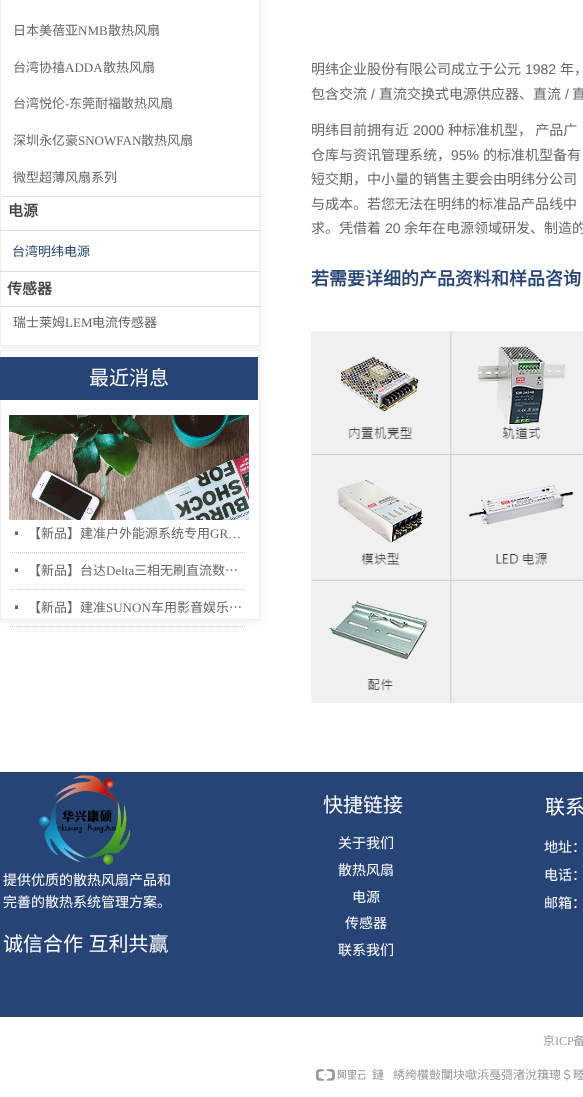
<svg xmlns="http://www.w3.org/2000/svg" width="583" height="1097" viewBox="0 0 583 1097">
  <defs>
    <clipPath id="clip1"><path d="M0 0H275V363H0ZM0-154H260V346H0Z" clip-rule="evenodd"/></clipPath>
    <clipPath id="clip2"><path d="M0 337H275V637H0ZM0 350H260V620H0Z" clip-rule="evenodd"/></clipPath>
  </defs>
  <rect width="100%" height="100%" fill="rgb(255,255,255)"/>
  <g clip-path="url(#clip1)">
    <rect x="0" y="-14" width="260" height="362" fill="rgb(238,238,238)" filter="blur(4.5px)"/>
  </g>
  <rect x="0.5" y="-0.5" width="259" height="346" fill="none" stroke="rgb(238,238,238)"/>
  <text x="13" y="35" font-family="Noto Sans CJK SC" font-size="13" fill="rgb(102,102,102)">日本美蓓亚</text>
  <text x="78" y="35" font-family="Liberation Serif" font-size="13" fill="rgb(102,102,102)">NMB</text>
  <g font-family="Noto Sans CJK SC" font-size="13" fill="rgb(102,102,102)">
    <text x="108" y="35">散热风扇</text>
    <text x="13" y="72">台湾协禧</text>
  </g>
  <text x="65" y="72" font-family="Liberation Serif" font-size="13" fill="rgb(102,102,102)">ADDA</text>
  <g font-family="Noto Sans CJK SC" font-size="13" fill="rgb(102,102,102)">
    <text x="103" y="72">散热风扇</text>
    <text x="13" y="108">台湾悦伦</text>
  </g>
  <text x="65" y="108" font-family="Liberation Serif" font-size="13" fill="rgb(102,102,102)">-</text>
  <g font-family="Noto Sans CJK SC" font-size="13" fill="rgb(102,102,102)">
    <text x="69" y="108">东莞耐福散热风扇</text>
    <text x="13" y="145">深圳永亿豪</text>
  </g>
  <text x="78" y="145" font-family="Liberation Serif" font-size="13" fill="rgb(102,102,102)">SNOWFAN</text>
  <g font-family="Noto Sans CJK SC" font-size="13" fill="rgb(102,102,102)">
    <text x="141" y="145">散热风扇</text>
    <text x="13" y="182">微型超薄风扇系列</text>
  </g>
  <text x="8" y="216" font-family="Noto Sans CJK SC" font-size="15" font-weight="bold" fill="rgb(68,68,68)">电源</text>
  <rect x="0" y="230" width="260" height="1" fill="rgb(221,221,221)"/>
  <text x="12" y="256" font-family="Noto Sans CJK SC" font-size="13" fill="rgb(39,68,118)">台湾明纬电源</text>
  <rect x="0" y="271" width="260" height="1" fill="rgb(221,221,221)"/>
  <text x="7" y="294" font-family="Noto Sans CJK SC" font-size="15" font-weight="bold" fill="rgb(68,68,68)">传感器</text>
  <rect x="1" y="306" width="260" height="1" fill="rgb(221,221,221)"/>
  <text x="13" y="327" font-family="Noto Sans CJK SC" font-size="13" fill="rgb(102,102,102)">瑞士莱姆</text>
  <text x="65" y="327" font-family="Liberation Serif" font-size="13" fill="rgb(102,102,102)">LEM</text>
  <text x="92" y="327" font-family="Noto Sans CJK SC" font-size="13" fill="rgb(102,102,102)">电流传感器</text>
  <rect x="2" y="196" width="260" height="1" fill="rgb(221,221,221)"/>
  <g clip-path="url(#clip2)">
    <rect x="0" y="352" width="260" height="270" fill="rgb(238,238,238)" filter="blur(4.5px)"/>
  </g>
  <rect x="0.5" y="350.5" width="259" height="269" fill="none" stroke="rgb(238,238,238)"/>
  <rect x="0" y="357" width="258" height="43" fill="rgb(39,68,118)"/>
  <text x="89" y="385" font-family="Noto Sans CJK SC" font-size="20" fill="rgb(255,255,255)">最近消息</text>
  <image x="9" y="415" width="240" height="105" href="pic1.png"/>
  <path d="M10 552.5H246" fill="none" stroke="rgb(204,204,204)" stroke-dasharray="1 1"/>
  <path d="M15 531.5H18V535H15Z" fill="rgb(102,102,102)"/>
  <text x="28" y="538" font-family="Noto Sans CJK SC" font-size="13" fill="rgb(102,102,102)">【新品】建准户外能源系统专用</text>
  <text x="210" y="538" font-family="Liberation Serif" font-size="13" fill="rgb(102,102,102)">GR…</text>
  <path d="M10 589.5H246" fill="none" stroke="rgb(204,204,204)" stroke-dasharray="1 1"/>
  <path d="M15 568.5H18V572H15Z" fill="rgb(102,102,102)"/>
  <text x="28" y="575" font-family="Noto Sans CJK SC" font-size="13" fill="rgb(102,102,102)">【新品】台达</text>
  <text x="106" y="575" font-family="Liberation Serif" font-size="13" fill="rgb(102,102,102)">Delta</text>
  <text x="134" y="575" font-family="Noto Sans CJK SC" font-size="13" fill="rgb(102,102,102)">三相无刷直流数…</text>
  <path d="M10 626.5H246" fill="none" stroke="rgb(204,204,204)" stroke-dasharray="1 1"/>
  <path d="M15 605.5H18V609H15Z" fill="rgb(102,102,102)"/>
  <text x="28" y="612" font-family="Noto Sans CJK SC" font-size="13" fill="rgb(102,102,102)">【新品】建准</text>
  <text x="106" y="612" font-family="Liberation Serif" font-size="13" fill="rgb(102,102,102)">SUNON</text>
  <text x="151" y="612" font-family="Noto Sans CJK SC" font-size="13" fill="rgb(102,102,102)">车用影音娱乐…</text>
  <text x="311" y="74" font-family="Noto Sans CJK SC" font-size="14" fill="rgb(102,102,102)">明纬企业股份有限公司成立于公元</text>
  <text x="525" y="74" font-family="Liberation Sans" font-size="14" fill="rgb(102,102,102)">1982</text>
  <g font-family="Noto Sans CJK SC" font-size="14" fill="rgb(102,102,102)">
    <text x="560" y="74">年，</text>
    <text x="311" y="99">包含交流</text>
  </g>
  <text x="371" y="99" font-family="Liberation Sans" font-size="14" fill="rgb(102,102,102)">/</text>
  <text x="379" y="99" font-family="Noto Sans CJK SC" font-size="14" fill="rgb(102,102,102)">直流交换式电源供应器、直流</text>
  <text x="565" y="99" font-family="Liberation Sans" font-size="14" fill="rgb(102,102,102)">/</text>
  <g font-family="Noto Sans CJK SC" font-size="14" fill="rgb(102,102,102)">
    <text x="572" y="99">直</text>
    <text x="311" y="135">明纬目前拥有近</text>
  </g>
  <text x="413" y="135" font-family="Liberation Sans" font-size="14" fill="rgb(102,102,102)">2000</text>
  <g font-family="Noto Sans CJK SC" font-size="14" fill="rgb(102,102,102)">
    <text x="448" y="135">种标准机型， 产品广</text>
    <text x="311" y="160">仓库与资讯管理系统，</text>
  </g>
  <text x="451" y="160" font-family="Liberation Sans" font-size="14" fill="rgb(102,102,102)">95%</text>
  <g font-family="Noto Sans CJK SC" font-size="14" fill="rgb(102,102,102)">
    <text x="483" y="160">的标准机型备有</text>
    <text>
      <tspan x="311" y="184">短交期，中小量的销售主要会由明纬分公司</tspan>
      <tspan x="311" y="209">与成本。若您无法在明纬的标准品产品线中</tspan>
      <tspan x="311" y="233">求。凭借着</tspan>
    </text>
  </g>
  <text x="385" y="233" font-family="Liberation Sans" font-size="14" fill="rgb(102,102,102)">20</text>
  <text x="404" y="233" font-family="Noto Sans CJK SC" font-size="14" fill="rgb(102,102,102)">余年在电源领域研发、制造的</text>
  <text x="311" y="285" font-family="Noto Sans CJK SC" font-size="18" font-weight="bold" fill="rgb(39,68,118)">若需要详细的产品资料和样品咨询</text>
  <image x="311" y="331" width="272" height="372" href="pic2.png"/>
  <rect x="0" y="772" width="583" height="245" fill="rgb(39,68,118)"/>
  <image x="39" y="775" width="92" height="90" href="pic3.png"/>
  <g font-family="Noto Sans CJK SC" font-size="20" fill="rgb(255,255,255)">
    <text x="323" y="812">快捷链接</text>
    <text x="545" y="814">联系</text>
  </g>
  <g font-family="Noto Sans CJK SC" font-size="14" fill="rgb(255,255,255)">
    <text>
      <tspan x="3" y="885">提供优质的散热风扇产品和</tspan>
      <tspan x="3" y="907">完善的散热系统管理方案。</tspan>
    </text>
    <text>
      <tspan x="338" y="848">关于我们</tspan>
      <tspan x="338" y="875">散热风扇</tspan>
    </text>
    <text x="352" y="902">电源</text>
    <text x="345" y="928">传感器</text>
    <text x="338" y="955">联系我们</text>
    <text x="544" y="852">地址：</text>
    <text x="544" y="880">电话：</text>
    <text x="544" y="908">邮箱：</text>
  </g>
  <text x="3" y="951" word-spacing="1" font-family="Noto Sans CJK SC" font-size="20" fill="rgb(255,255,255)">诚信合作 互利共赢</text>
  <text x="543" y="1045" font-family="Noto Sans CJK SC" font-size="12" fill="rgb(152,152,152)">京</text>
  <text x="555" y="1045" font-family="Liberation Serif" font-size="12" fill="rgb(152,152,152)">ICP</text>
  <text x="573" y="1045" font-family="Noto Sans CJK SC" font-size="12" fill="rgb(152,152,152)">备</text>
  <image x="316" y="1069" width="50" height="12" href="pic4.png"/>
  <g font-family="Noto Sans CJK SC" font-size="12" fill="rgb(152,152,152)">
    <text x="372" y="1079">鏈</text>
    <text x="393" y="1079">綉绔欑敱闃块噷浜戞彁渚涗簯璁＄畻</text>
  </g>
</svg>
